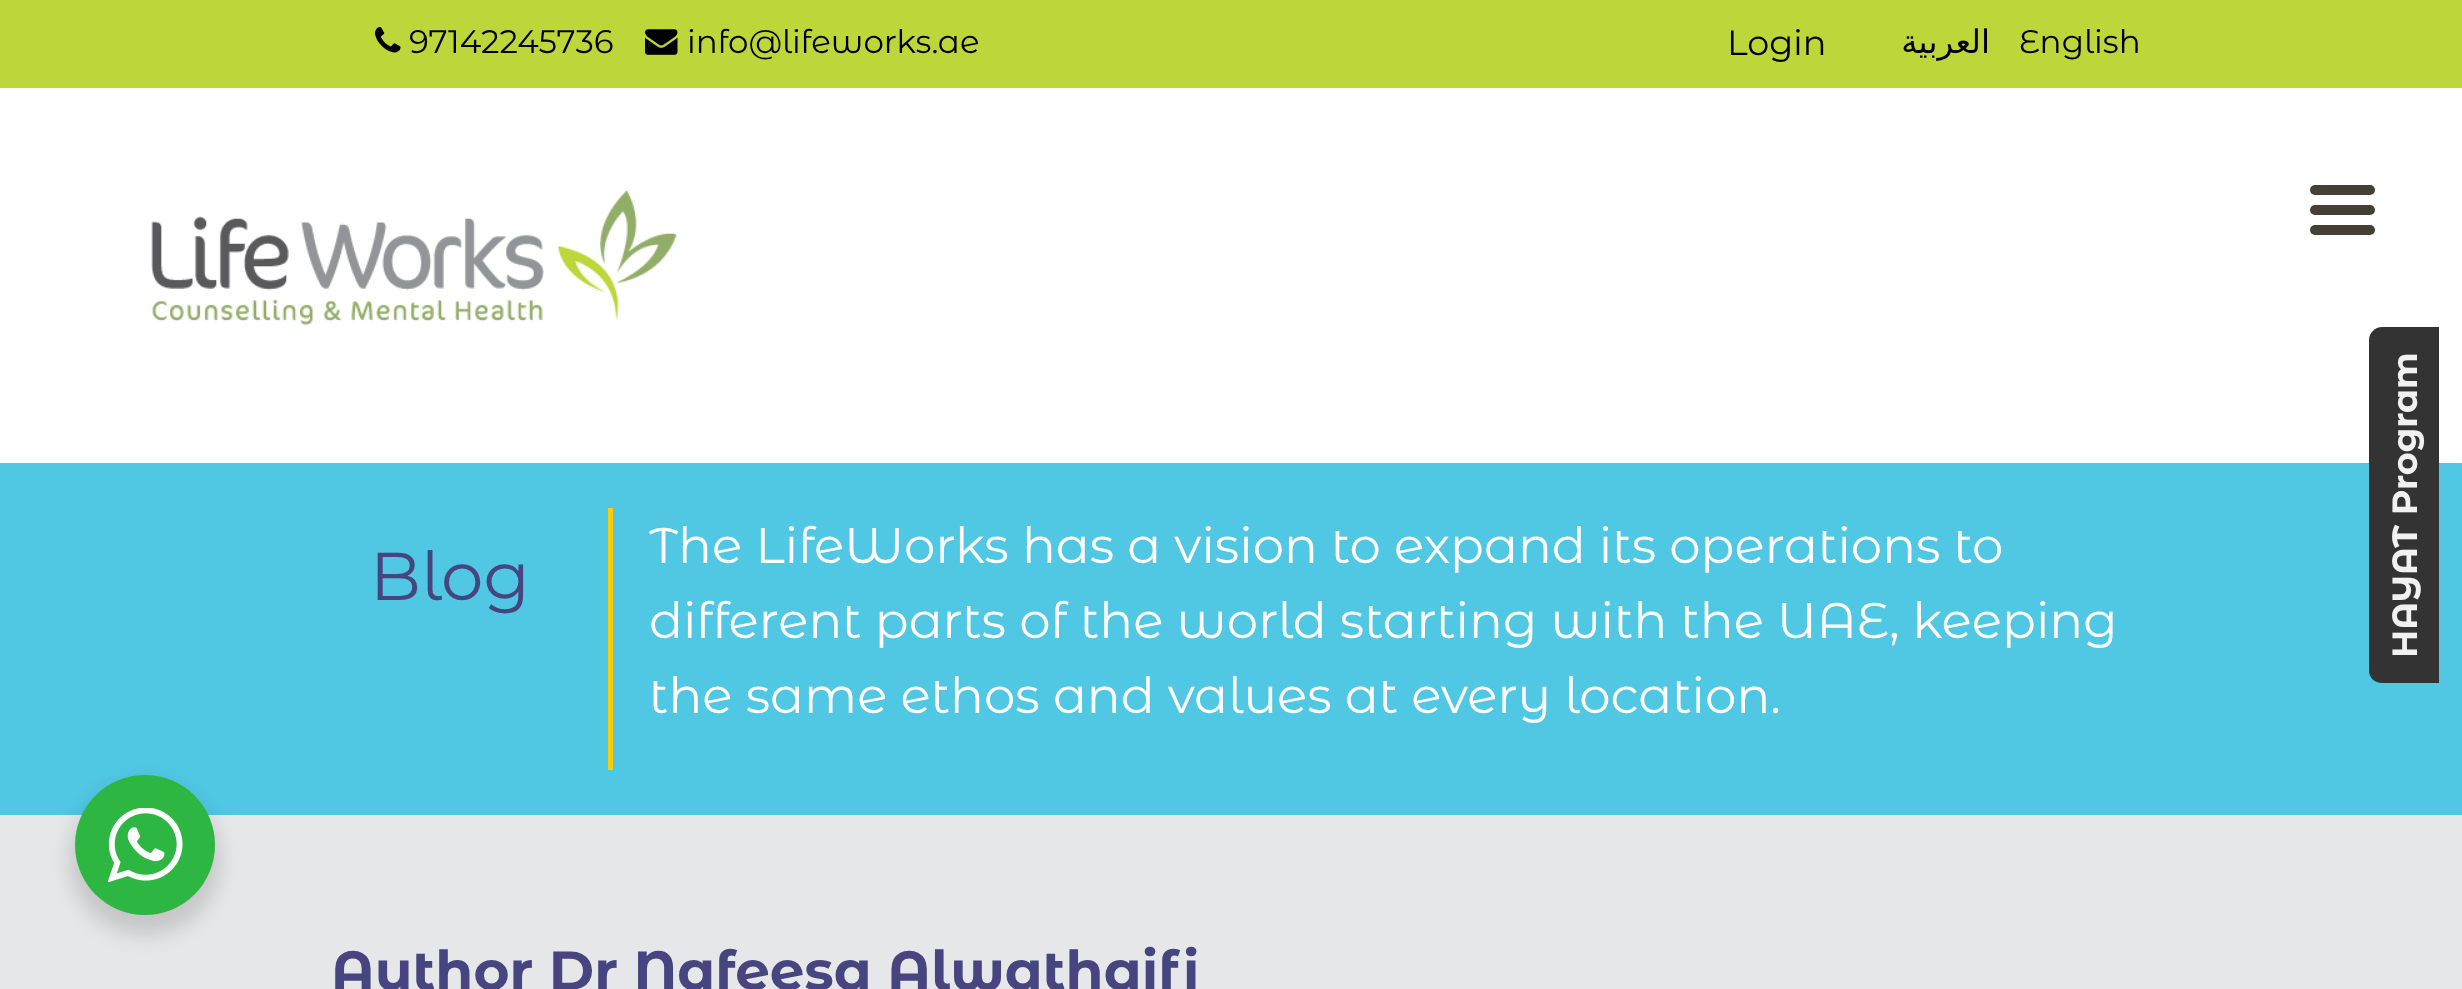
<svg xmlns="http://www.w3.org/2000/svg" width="2462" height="989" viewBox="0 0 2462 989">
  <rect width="100%" height="100%" fill="rgb(255,255,255)"/>
  <rect x="0" y="0" width="2462" height="88" fill="rgb(189,214,57)"/>
  <image x="375" y="27" width="26" height="26" href="pic1.png"/>
  <text x="409" y="53" font-family="Montserrat Alternates" font-size="32.5" fill="rgb(0,0,0)">97142245736</text>
  <image x="645" y="29" width="33" height="26" href="pic2.png"/>
  <text x="687" y="53" font-family="Montserrat Alternates" font-size="32.5" fill="rgb(0,0,0)">info@lifeworks.ae</text>
  <text x="1727" y="55" font-family="Montserrat Alternates" font-size="35" fill="rgb(0,0,0)">Login</text>
  <text x="1990" y="53" font-family="DejaVu Sans" font-size="32.5" direction="rtl" fill="rgb(0,0,0)">العربية</text>
  <text x="2019" y="53" font-family="Montserrat Alternates" font-size="32.5" fill="rgb(0,0,0)">English</text>
  <image x="151" y="190" width="526" height="136" href="pic3.png"/>
  <rect x="2310" y="205" width="65" height="10" rx="5" fill="rgb(68,64,54)"/>
  <rect x="2310" y="185" width="65" height="10" rx="5" fill="rgb(68,64,54)"/>
  <rect x="2310" y="225" width="65" height="10" rx="5" fill="rgb(68,64,54)"/>
  <rect x="0" y="815" width="2462" height="174" fill="rgb(230,231,232)"/>
  <rect x="0" y="463" width="2462" height="352" fill="rgb(80,199,227)"/>
  <text x="370" y="600" font-family="Montserrat Alternates" font-size="67.5" fill="rgb(71,69,128)">Blog</text>
  <rect x="608" y="508" width="5" height="262" fill="rgb(255,203,11)"/>
  <g font-family="Montserrat Alternates" font-size="50" fill="rgb(255,255,255)">
    <text>
      <tspan x="649" y="563">The LifeWorks has a vision to expand its operations to</tspan>
      <tspan x="649" y="638">different parts of the world starting with the UAE, keeping</tspan>
      <tspan x="649" y="713">the same ethos and values at every location.</tspan>
    </text>
  </g>
  <text x="331" y="990" font-family="Montserrat Alternates" font-size="55" font-weight="bold" fill="rgb(71,69,128)">Author Dr Nafeesa Alwathaifi</text>
  <path d="M2369 671V340C2369 333 2375 327 2382 327H2439V683H2382C2375 683 2369 678 2369 671Z" fill="rgb(51,51,51)"/>
  <text x="2417" y="658" transform="rotate(-90 2417 658)" font-family="Montserrat Alternates" font-size="35" font-weight="bold" fill="rgb(241,241,241)">HAYAT Program</text>
  <rect x="70" y="785" width="150" height="150" rx="75" fill="rgba(0,0,0,0.14)" filter="blur(10px)"/>
  <circle cx="145" cy="845" r="70" fill="rgb(45,183,66)"/>
  <image x="108" y="808" width="75" height="75" href="pic4.png"/>
</svg>
